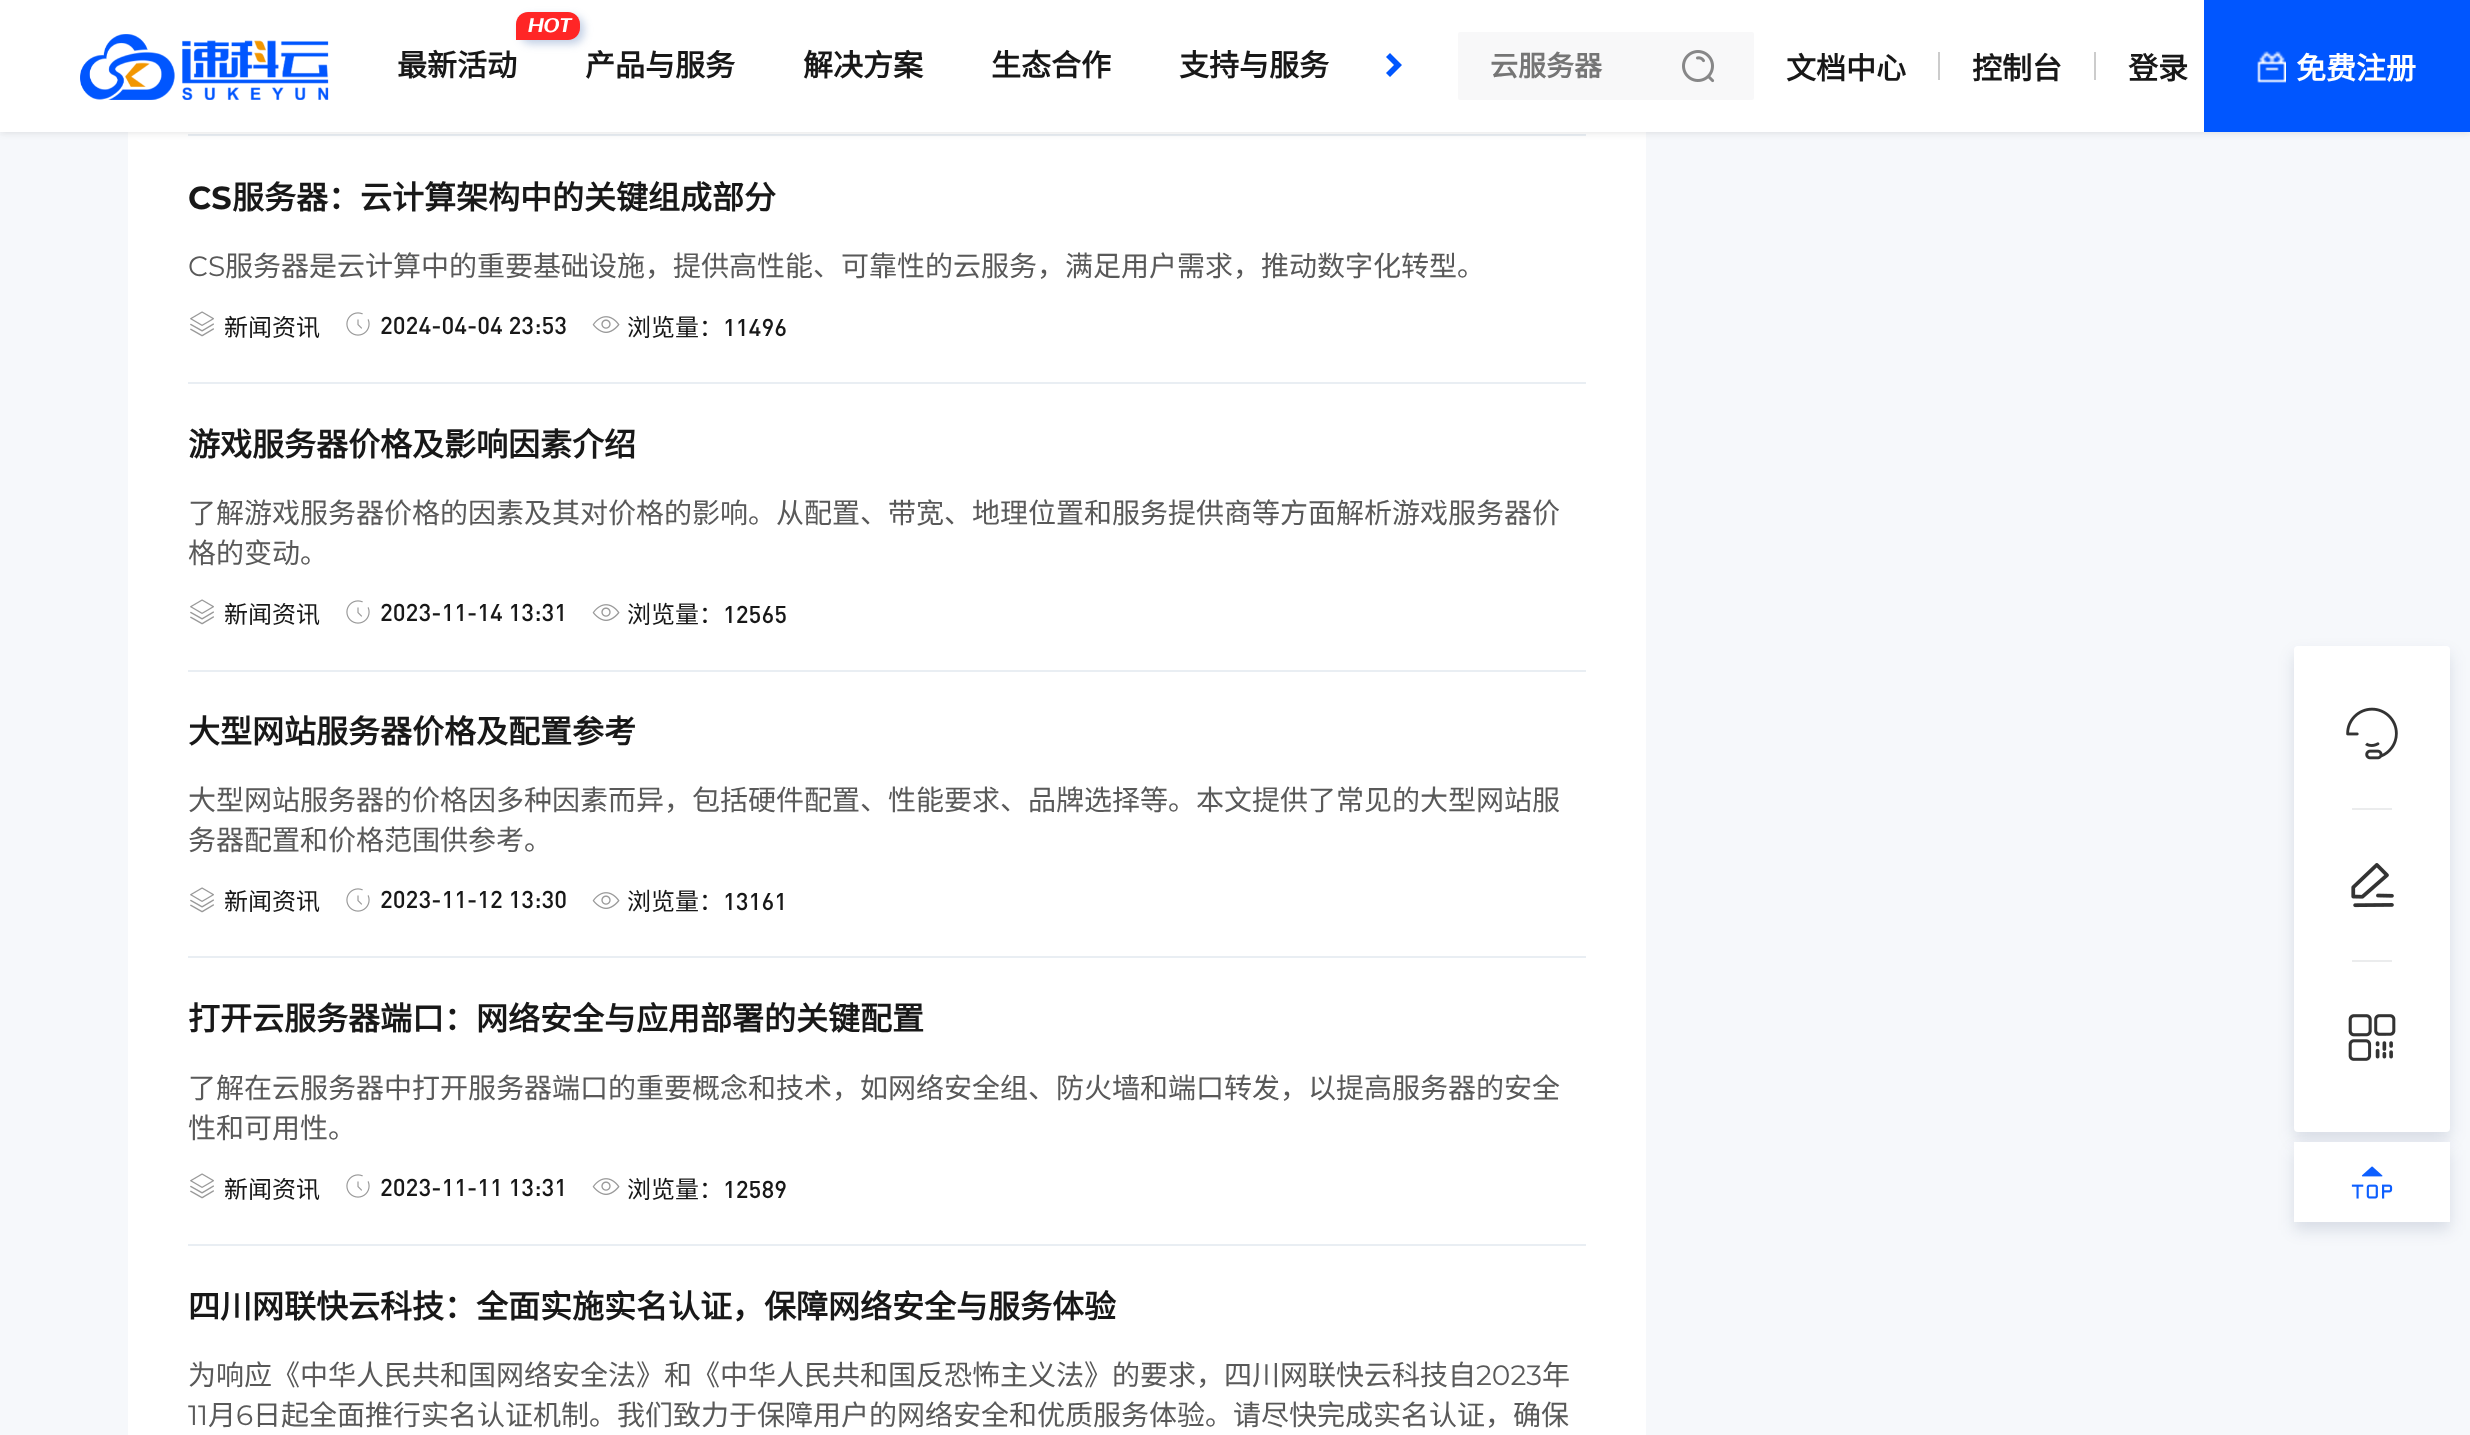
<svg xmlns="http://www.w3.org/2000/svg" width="2470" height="1435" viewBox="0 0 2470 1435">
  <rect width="100%" height="100%" fill="rgb(246,248,251)"/>
  <rect x="128" y="132" width="1518" height="1303" fill="rgb(255,255,255)"/>
  <rect x="188" y="134" width="1398" height="2" fill="rgb(233,238,243)"/>
  <rect x="0" y="2" width="2470" height="132" fill="rgba(49,49,49,0.1)" filter="blur(3px)"/>
  <rect x="0" y="0" width="2204" height="132" fill="rgb(255,255,255)"/>
  <image x="80" y="34" width="249" height="66" href="pic1.png"/>
  <rect x="520" y="16" width="64" height="28" rx="12" fill="rgba(55,99,170,0.31)" filter="blur(4px)"/>
  <path d="M528 12H568C574.5 12 580 17.5 580 24V28C580 34.5 574.5 40 568 40H516V24C516 17.5 521.5 12 528 12Z" fill="rgb(255,38,38)"/>
  <text x="527" y="32" font-family="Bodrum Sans" font-size="20" font-weight="800" font-style="italic" fill="rgb(255,255,255)">HOT</text>
  <g font-family="Noto Sans CJK SC" font-size="30" font-weight="bold" fill="rgb(24,24,24)">
    <text x="397" y="76">最新活动</text>
    <text x="585" y="76">产品与服务</text>
    <text x="803" y="76">解决方案</text>
    <text x="991" y="76">生态合作</text>
    <text x="1179" y="76">支持与服务</text>
  </g>
  <path d="M1390 77L1386 73L1394 65L1386 57L1390 53L1402 65Z" fill="rgb(0,86,255)"/>
  <rect x="1458" y="32" width="296" height="68" rx="2" fill="rgb(248,248,249)"/>
  <text x="1490" y="76" font-family="Noto Sans CJK SC" font-size="28" font-weight="bold" fill="rgb(117,117,117)">云服务器</text>
  <image x="1682" y="50" width="33" height="33" href="pic2.png"/>
  <text x="1786" y="79" font-family="Noto Sans CJK SC" font-size="30" font-weight="bold" fill="rgb(24,24,24)">文档中心</text>
  <rect x="1938" y="52" width="2" height="28" fill="rgb(204,204,204)"/>
  <text x="1972" y="79" font-family="Noto Sans CJK SC" font-size="30" font-weight="bold" fill="rgb(24,24,24)">控制台</text>
  <rect x="2094" y="52" width="2" height="28" fill="rgb(204,204,204)"/>
  <text x="2128" y="79" font-family="Noto Sans CJK SC" font-size="30" font-weight="bold" fill="rgb(24,24,24)">登录</text>
  <rect x="2204" y="0" width="266" height="132" fill="rgb(0,86,255)"/>
  <image x="2257" y="51" width="29" height="32" href="pic3.png"/>
  <text x="2296" y="79" font-family="Noto Sans CJK SC" font-size="30" font-weight="bold" fill="rgb(255,255,255)">免费注册</text>
  <rect x="188" y="382" width="1398" height="2" fill="rgb(233,238,243)"/>
  <text x="188" y="209" font-family="Montserrat" font-size="32" font-weight="bold" fill="rgb(24,24,24)">CS</text>
  <text x="232" y="209" font-family="Noto Sans CJK SC" font-size="32" font-weight="bold" fill="rgb(24,24,24)">服务器：云计算架构中的关键组成部分</text>
  <text x="188" y="276" font-family="Montserrat" font-size="28" fill="rgb(89,89,89)">CS</text>
  <text x="225" y="276" font-family="Noto Sans CJK SC" font-size="28" fill="rgb(89,89,89)">服务器是云计算中的重要基础设施，提供高性能、可靠性的云服务，满足用户需求，推动数字化转型。</text>
  <image x="190" y="311" width="24" height="26" href="pic4.png"/>
  <text x="224" y="336" font-family="Noto Sans CJK SC" font-size="24" fill="rgb(24,24,24)">新闻资讯</text>
  <image x="346" y="312" width="24" height="24" href="pic5.png"/>
  <text x="380" y="334" font-family="DIN" font-size="24" font-weight="500" fill="rgb(24,24,24)">2024-04-04 23:53</text>
  <image x="592" y="316" width="28" height="17" href="pic6.png"/>
  <text x="627" y="336" font-family="Noto Sans CJK SC" font-size="24" fill="rgb(24,24,24)">浏览量：</text>
  <text x="723" y="336" font-family="DIN" font-size="24" font-weight="500" fill="rgb(24,24,24)">11496</text>
  <rect x="188" y="670" width="1398" height="2" fill="rgb(233,238,243)"/>
  <text x="188" y="456" font-family="Noto Sans CJK SC" font-size="32" font-weight="bold" fill="rgb(24,24,24)">游戏服务器价格及影响因素介绍</text>
  <g font-family="Noto Sans CJK SC" font-size="28" fill="rgb(89,89,89)">
    <text>
      <tspan x="188" y="523">了解游戏服务器价格的因素及其对价格的影响。从配置、带宽、地理位置和服务提供商等方面解析游戏服务器价</tspan>
      <tspan x="188" y="563">格的变动。</tspan>
    </text>
  </g>
  <image x="190" y="599" width="24" height="26" href="pic4.png"/>
  <text x="224" y="623" font-family="Noto Sans CJK SC" font-size="24" fill="rgb(24,24,24)">新闻资讯</text>
  <image x="346" y="600" width="24" height="24" href="pic5.png"/>
  <text x="380" y="621" font-family="DIN" font-size="24" font-weight="500" fill="rgb(24,24,24)">2023-11-14 13:31</text>
  <image x="592" y="604" width="28" height="17" href="pic6.png"/>
  <text x="627" y="623" font-family="Noto Sans CJK SC" font-size="24" fill="rgb(24,24,24)">浏览量：</text>
  <text x="723" y="623" font-family="DIN" font-size="24" font-weight="500" fill="rgb(24,24,24)">12565</text>
  <rect x="188" y="956" width="1398" height="2" fill="rgb(233,238,243)"/>
  <text x="188" y="743" font-family="Noto Sans CJK SC" font-size="32" font-weight="bold" fill="rgb(24,24,24)">大型网站服务器价格及配置参考</text>
  <g font-family="Noto Sans CJK SC" font-size="28" fill="rgb(89,89,89)">
    <text>
      <tspan x="188" y="810">大型网站服务器的价格因多种因素而异，包括硬件配置、性能要求、品牌选择等。本文提供了常见的大型网站服</tspan>
      <tspan x="188" y="850">务器配置和价格范围供参考。</tspan>
    </text>
  </g>
  <image x="190" y="887" width="24" height="26" href="pic4.png"/>
  <text x="224" y="910" font-family="Noto Sans CJK SC" font-size="24" fill="rgb(24,24,24)">新闻资讯</text>
  <image x="346" y="888" width="24" height="24" href="pic5.png"/>
  <text x="380" y="908" font-family="DIN" font-size="24" font-weight="500" fill="rgb(24,24,24)">2023-11-12 13:30</text>
  <image x="592" y="892" width="28" height="17" href="pic6.png"/>
  <text x="627" y="910" font-family="Noto Sans CJK SC" font-size="24" fill="rgb(24,24,24)">浏览量：</text>
  <text x="723" y="910" font-family="DIN" font-size="24" font-weight="500" fill="rgb(24,24,24)">13161</text>
  <rect x="188" y="1244" width="1398" height="2" fill="rgb(233,238,243)"/>
  <text x="188" y="1030" font-family="Noto Sans CJK SC" font-size="32" font-weight="bold" fill="rgb(24,24,24)">打开云服务器端口：网络安全与应用部署的关键配置</text>
  <g font-family="Noto Sans CJK SC" font-size="28" fill="rgb(89,89,89)">
    <text>
      <tspan x="188" y="1098">了解在云服务器中打开服务器端口的重要概念和技术，如网络安全组、防火墙和端口转发，以提高服务器的安全</tspan>
      <tspan x="188" y="1138">性和可用性。</tspan>
    </text>
  </g>
  <image x="190" y="1173" width="24" height="26" href="pic4.png"/>
  <text x="224" y="1198" font-family="Noto Sans CJK SC" font-size="24" fill="rgb(24,24,24)">新闻资讯</text>
  <image x="346" y="1174" width="24" height="24" href="pic5.png"/>
  <text x="380" y="1196" font-family="DIN" font-size="24" font-weight="500" fill="rgb(24,24,24)">2023-11-11 13:31</text>
  <image x="592" y="1178" width="28" height="17" href="pic6.png"/>
  <text x="627" y="1198" font-family="Noto Sans CJK SC" font-size="24" fill="rgb(24,24,24)">浏览量：</text>
  <text x="723" y="1198" font-family="DIN" font-size="24" font-weight="500" fill="rgb(24,24,24)">12589</text>
  <text x="188" y="1318" font-family="Noto Sans CJK SC" font-size="32" font-weight="bold" fill="rgb(24,24,24)">四川网联快云科技：全面实施实名认证，保障网络安全与服务体验</text>
  <text x="188" y="1385" font-family="Noto Sans CJK SC" font-size="28" fill="rgb(89,89,89)">为响应《中华人民共和国网络安全法》和《中华人民共和国反恐怖主义法》的要求，四川网联快云科技自</text>
  <text x="1476" y="1385" font-family="Montserrat" font-size="28" fill="rgb(89,89,89)">2023</text>
  <text x="1542" y="1385" font-family="Noto Sans CJK SC" font-size="28" fill="rgb(89,89,89)">年</text>
  <text x="188" y="1425" font-family="Montserrat" font-size="28" fill="rgb(89,89,89)">11</text>
  <text x="208" y="1425" font-family="Noto Sans CJK SC" font-size="28" fill="rgb(89,89,89)">月</text>
  <text x="236" y="1425" font-family="Montserrat" font-size="28" fill="rgb(89,89,89)">6</text>
  <text x="253" y="1425" font-family="Noto Sans CJK SC" font-size="28" fill="rgb(89,89,89)">日起全面推行实名认证机制。我们致力于保障用户的网络安全和优质服务体验。请尽快完成实名认证，确保</text>
  <rect x="2294" y="654" width="156" height="486" rx="4" fill="rgba(3,27,78,0.12)" filter="blur(8px)"/>
  <rect x="2294" y="646" width="156" height="486" rx="4" fill="rgb(255,255,255)"/>
  <image x="2346" y="707" width="52" height="53" href="pic7.png"/>
  <rect x="2352" y="808" width="40" height="2" fill="rgb(235,236,237)"/>
  <image x="2351" y="863" width="43" height="45" href="pic8.png"/>
  <rect x="2352" y="960" width="40" height="2" fill="rgb(235,236,237)"/>
  <image x="2348" y="1014" width="48" height="47" href="pic9.png"/>
  <rect x="2294" y="1150" width="156" height="80" fill="rgba(3,27,78,0.12)" filter="blur(8px)"/>
  <rect x="2294" y="1142" width="156" height="80" fill="rgb(255,255,255)"/>
  <image x="2351" y="1166" width="42" height="33" href="pic10.png"/>
</svg>
